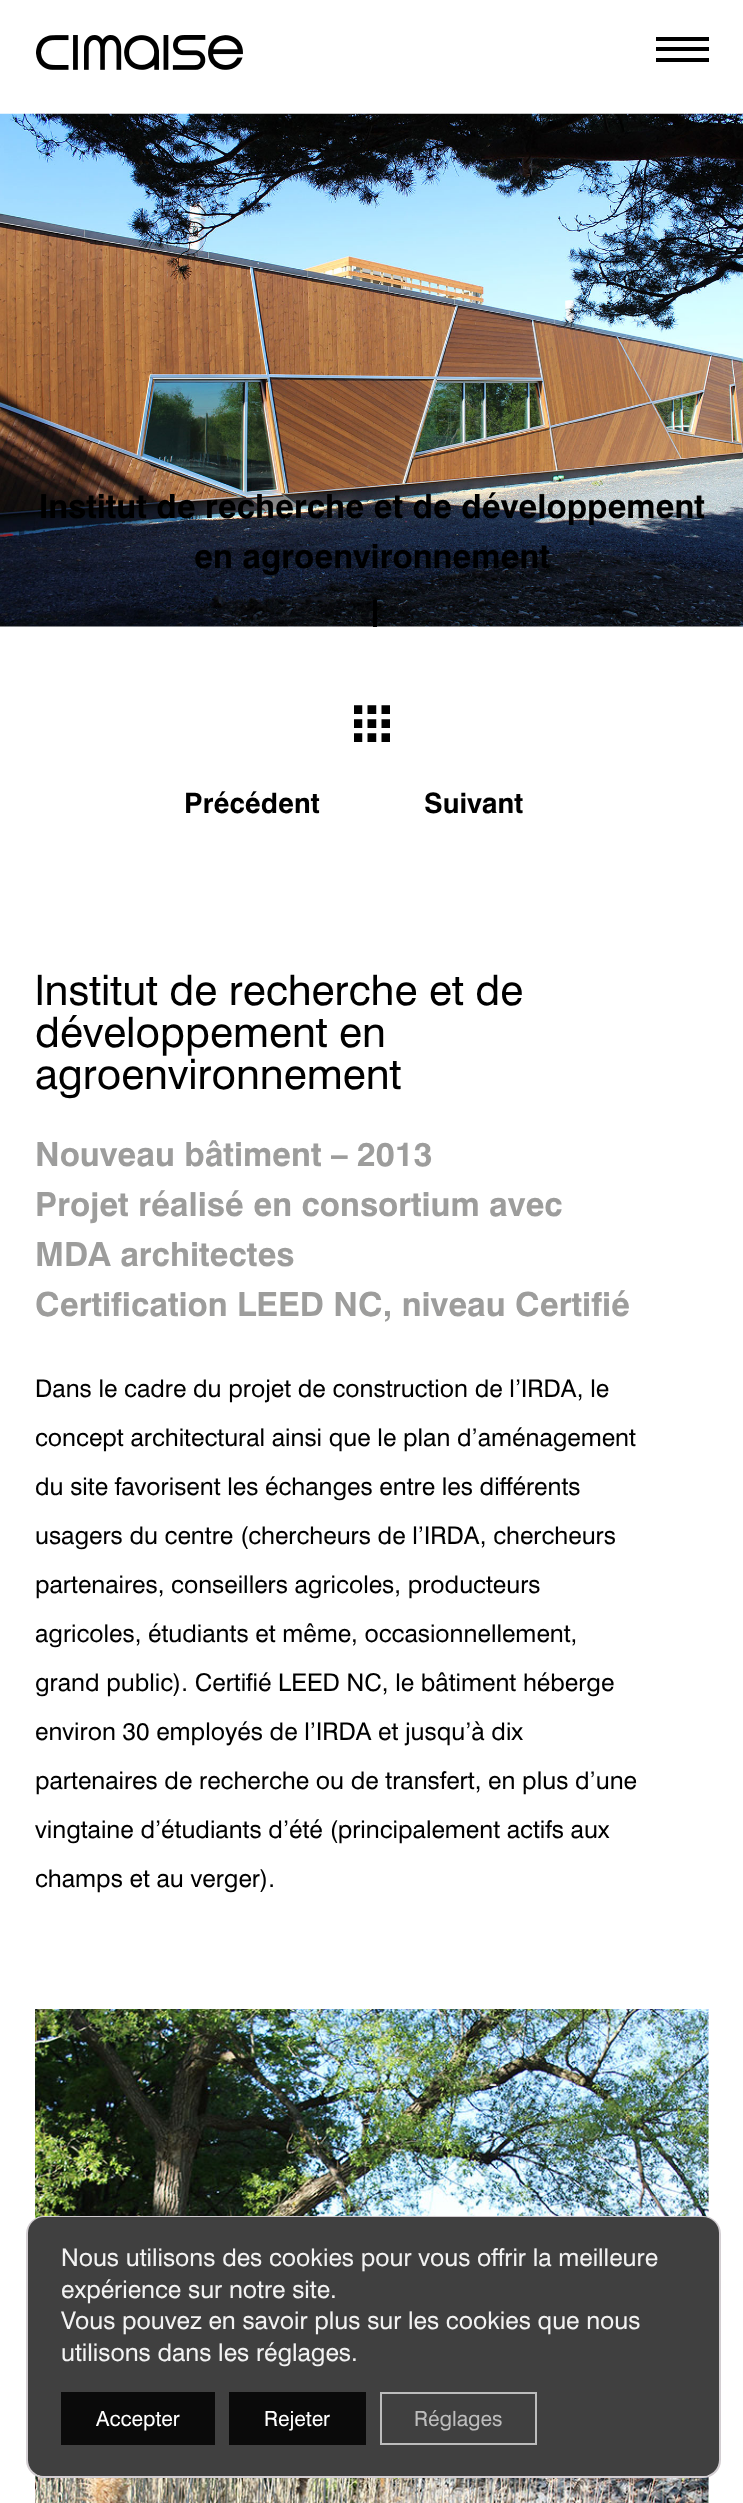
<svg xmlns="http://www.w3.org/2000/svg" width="743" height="2503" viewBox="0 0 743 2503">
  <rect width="100%" height="100%" fill="rgb(255,255,255)"/>
  <image x="36" y="35" width="207" height="35" href="pic1.png"/>
  <rect x="656" y="37" width="53" height="4" fill="rgb(0,0,0)"/>
  <rect x="656" y="47" width="53" height="4" fill="rgb(0,0,0)"/>
  <rect x="656" y="58" width="53" height="4" fill="rgb(0,0,0)"/>
  <image x="0" y="113" width="743" height="514" href="pic2.png"/>
  <g font-family="'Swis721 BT'" font-size="33.25" font-weight="bold" fill="rgb(0,0,0)">
    <text x="39" y="518">lnstitut de recherche et de développement</text>
    <text x="194" y="568">en agroenvironnement</text>
  </g>
  <rect x="373" y="600" width="4" height="27" fill="rgb(0,0,0)"/>
  <image x="354" y="705" width="36" height="37" href="pic3.png"/>
  <g font-family="'Swis721 BT'" font-size="28" font-weight="bold" fill="rgb(0,0,0)">
    <text x="184" y="813">Précédent</text>
    <text x="424" y="813">Suivant</text>
  </g>
  <g font-family="'Swis721 BT'" font-size="42" fill="rgb(0,0,0)">
    <text>
      <tspan x="35" y="1005">lnstitut de recherche et de</tspan>
      <tspan x="35" y="1047">développement en</tspan>
      <tspan x="35" y="1089">agroenvironnement</tspan>
    </text>
  </g>
  <g font-family="'Swis721 BT'" font-size="33.25" font-weight="bold" fill="rgb(157,157,156)">
    <text>
      <tspan x="35" y="1166">Nouveau bâtiment – 2013</tspan>
      <tspan x="35" y="1216">Projet réalisé en consortium avec</tspan>
      <tspan x="35" y="1266">MDA architectes</tspan>
      <tspan x="35" y="1316">Certification LEED NC, niveau Certifié</tspan>
    </text>
  </g>
  <g font-family="'Swis721 BT'" font-size="24.5" fill="rgb(0,0,0)">
    <text x="35" y="1397">Dans le cadre du projet de construction de l’IRDA, le</text>
    <text x="35" y="1446">concept architectural ainsi que le plan d’aménagement</text>
    <text x="35" y="1495">du site favorisent les échanges entre les différents</text>
    <text x="35" y="1544">usagers du centre (chercheurs de l’IRDA, chercheurs</text>
    <text x="35" y="1593">partenaires, conseillers agricoles, producteurs</text>
    <text x="35" y="1642">agricoles, étudiants et même, occasionnellement,</text>
    <text x="35" y="1691">grand public). Certifié LEED NC, le bâtiment héberge</text>
    <text x="35" y="1740">environ 30 employés de l’IRDA et jusqu’à dix</text>
    <text x="35" y="1789">partenaires de recherche ou de transfert, en plus d’une</text>
    <text x="35" y="1838">vingtaine d’étudiants d’été (principalement actifs aux</text>
    <text x="35" y="1887">champs et au verger).</text>
  </g>
  <image x="35" y="2009" width="674" height="494" href="pic4.png"/>
  <rect x="27" y="2217" width="693" height="260" rx="17" fill="none" stroke="rgb(211,206,210)" stroke-width="2"/>
  <rect x="28" y="2217" width="691" height="259" rx="16" fill="rgb(64,64,64)"/>
  <g font-family="'Swis721 BT'" font-size="24.5" fill="rgb(242,242,242)">
    <text>
      <tspan x="61" y="2266">Nous utilisons des cookies pour vous offrir la meilleure</tspan>
      <tspan x="61" y="2298">expérience sur notre site.</tspan>
      <tspan x="61" y="2329">Vous pouvez en savoir plus sur les cookies que nous</tspan>
      <tspan x="61" y="2361">utilisons dans les réglages.</tspan>
    </text>
  </g>
  <rect x="61" y="2392" width="154" height="53" fill="rgb(10,10,10)"/>
  <text x="96" y="2426" font-family="'Swis721 BT'" font-size="21" fill="rgb(255,255,255)">Accepter</text>
  <rect x="229" y="2392" width="137" height="53" fill="rgb(10,10,10)"/>
  <text x="264" y="2426" font-family="'Swis721 BT'" font-size="21" fill="rgb(255,255,255)">Rejeter</text>
  <rect x="381" y="2393" width="155" height="51" fill="none" stroke="rgb(189,189,189)" stroke-width="2"/>
  <text x="414" y="2426" font-family="'Swis721 BT'" font-size="21" fill="rgb(189,189,189)">Réglages</text>
</svg>
